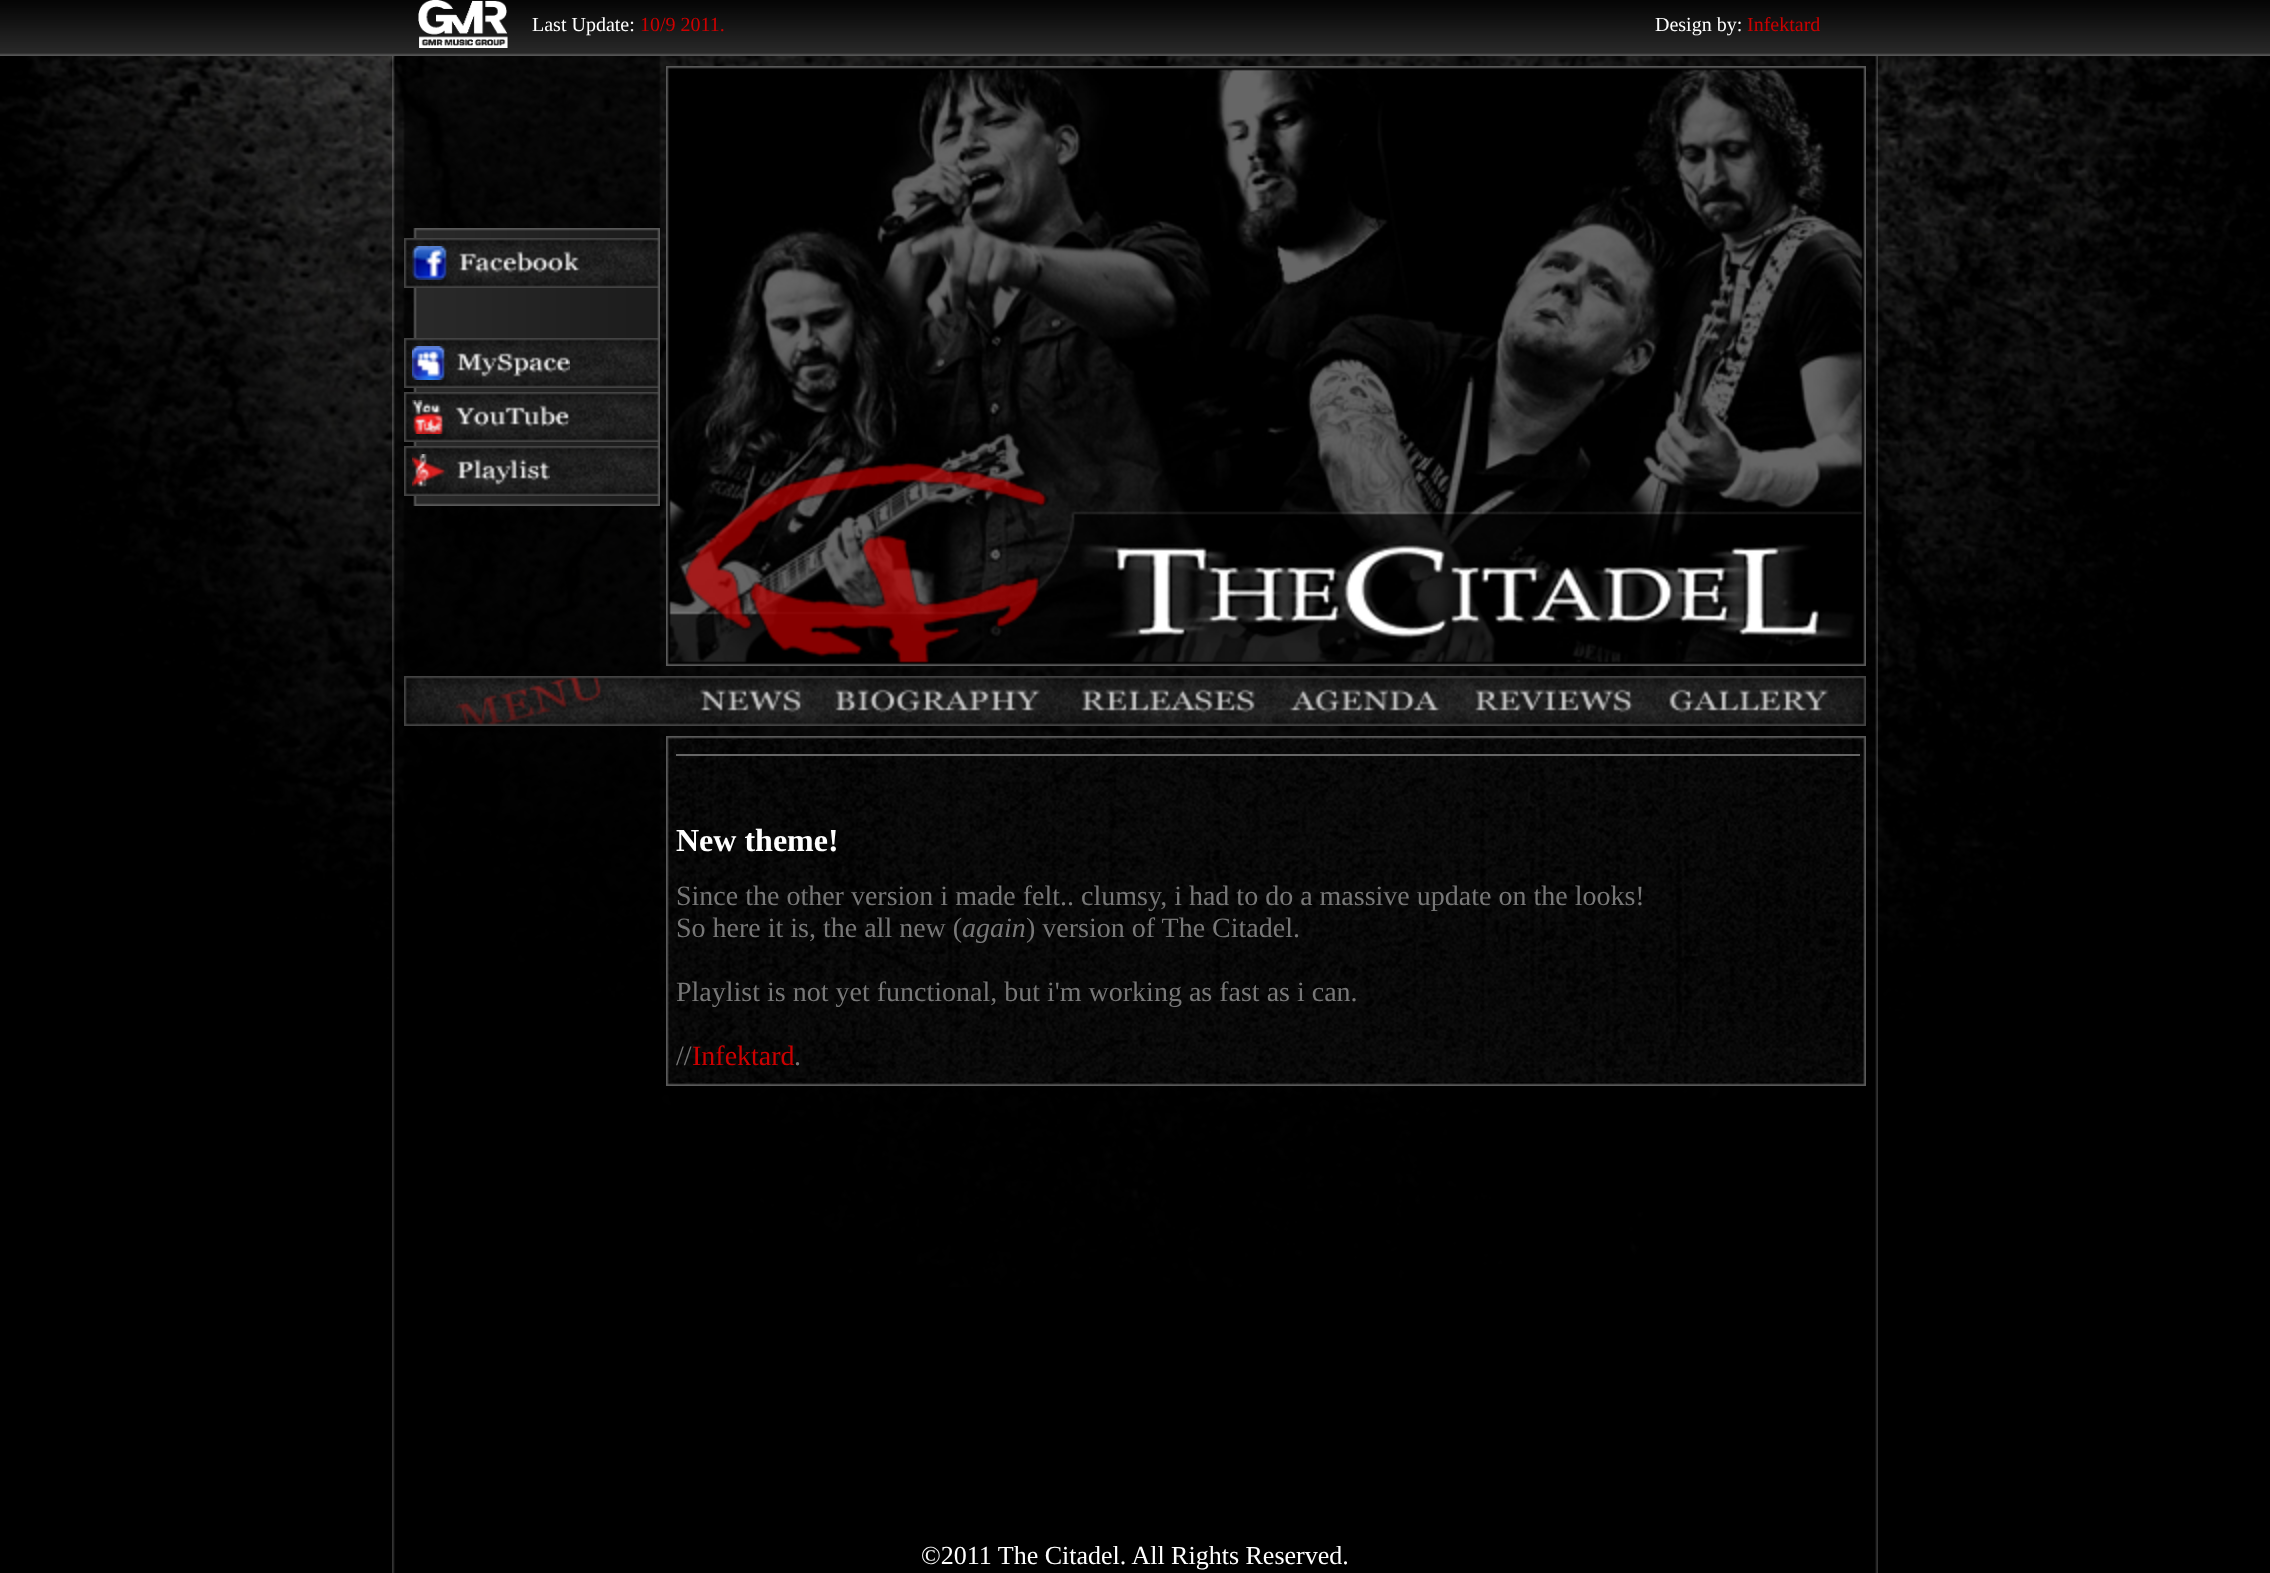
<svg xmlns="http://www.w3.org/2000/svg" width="2270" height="1573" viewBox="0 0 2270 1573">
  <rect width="100%" height="100%" fill="rgb(0,0,0)"/>
  <image x="0" y="56" width="2270" height="1231" href="pic1.png"/>
  <image x="0" y="0" width="2270" height="56" href="pic2.png"/>
  <image x="418" y="0" width="90" height="48" href="pic3.png"/>
  <text x="532" y="31" font-family="Liberation Serif" font-size="20" fill="rgb(255,255,255)">Last Update:</text>
  <text x="640" y="31" font-family="Liberation Serif" font-size="20" fill="rgb(204,0,0)">10/9 2011.</text>
  <text x="1655" y="31" font-family="Liberation Serif" font-size="20" fill="rgb(255,255,255)">Design by:</text>
  <text x="1747" y="31" font-family="Liberation Serif" font-size="20" fill="rgb(204,0,0)">Infektard</text>
  <image x="392" y="56" width="1486" height="1448" href="pic4.png"/>
  <image x="413" y="228" width="247" height="10" href="pic5.png"/>
  <image x="413" y="238" width="247" height="258" href="pic6.png"/>
  <image x="404" y="238" width="255" height="50" href="pic7.png"/>
  <image x="412" y="246" width="168" height="34" href="pic8.png"/>
  <image x="404" y="338" width="255" height="50" href="pic7.png"/>
  <image x="412" y="346" width="158" height="34" href="pic9.png"/>
  <image x="404" y="392" width="255" height="50" href="pic7.png"/>
  <image x="412" y="400" width="158" height="34" href="pic10.png"/>
  <image x="404" y="446" width="255" height="50" href="pic7.png"/>
  <image x="412" y="454" width="138" height="33" href="pic11.png"/>
  <image x="413" y="496" width="247" height="10" href="pic12.png"/>
  <image x="666" y="66" width="1200" height="600" href="pic13.png"/>
  <image x="404" y="676" width="1462" height="50" href="pic14.png"/>
  <image x="699" y="689" width="102" height="24" href="pic15.png"/>
  <image x="835" y="689" width="206" height="24" href="pic16.png"/>
  <image x="1081" y="689" width="174" height="24" href="pic17.png"/>
  <image x="1289" y="689" width="152" height="24" href="pic18.png"/>
  <image x="1475" y="689" width="158" height="24" href="pic19.png"/>
  <image x="1669" y="689" width="160" height="24" href="pic20.png"/>
  <image x="666" y="736" width="1200" height="4" href="pic21.png"/>
  <image x="666" y="740" width="1200" height="342" href="pic22.png"/>
  <rect x="676" y="754" width="1184" height="2" fill="rgb(102,102,102)"/>
  <text x="676" y="851" font-family="Liberation Serif" font-size="32" font-weight="bold" fill="rgb(255,255,255)">New theme!</text>
  <g font-family="Liberation Serif" font-size="28" fill="rgb(119,119,119)">
    <text>
      <tspan x="676" y="905">Since the other version i made felt.. clumsy, i had to do a massive update on the looks!</tspan>
      <tspan x="676" y="937">So here it is, the all new (</tspan>
    </text>
  </g>
  <text x="962" y="937" font-family="Liberation Serif" font-size="28" font-style="italic" fill="rgb(119,119,119)">again</text>
  <g font-family="Liberation Serif" font-size="28" fill="rgb(119,119,119)">
    <text x="1026" y="937">) version of The Citadel.</text>
    <text x="676" y="1001">Playlist is not yet functional, but i'm working as fast as i can.</text>
    <text x="676" y="1065">//</text>
  </g>
  <text x="692" y="1065" font-family="Liberation Serif" font-size="28" fill="rgb(204,0,0)">Infektard</text>
  <text x="794" y="1065" font-family="Liberation Serif" font-size="28" fill="rgb(119,119,119)">.</text>
  <image x="666" y="1082" width="1200" height="4" href="pic23.png"/>
  <image x="392" y="1504" width="1486" height="69" href="pic24.png"/>
  <text x="921" y="1564" font-family="Liberation Serif" font-size="26" fill="rgb(255,255,255)">©2011 The Citadel. All Rights Reserved.</text>
</svg>
